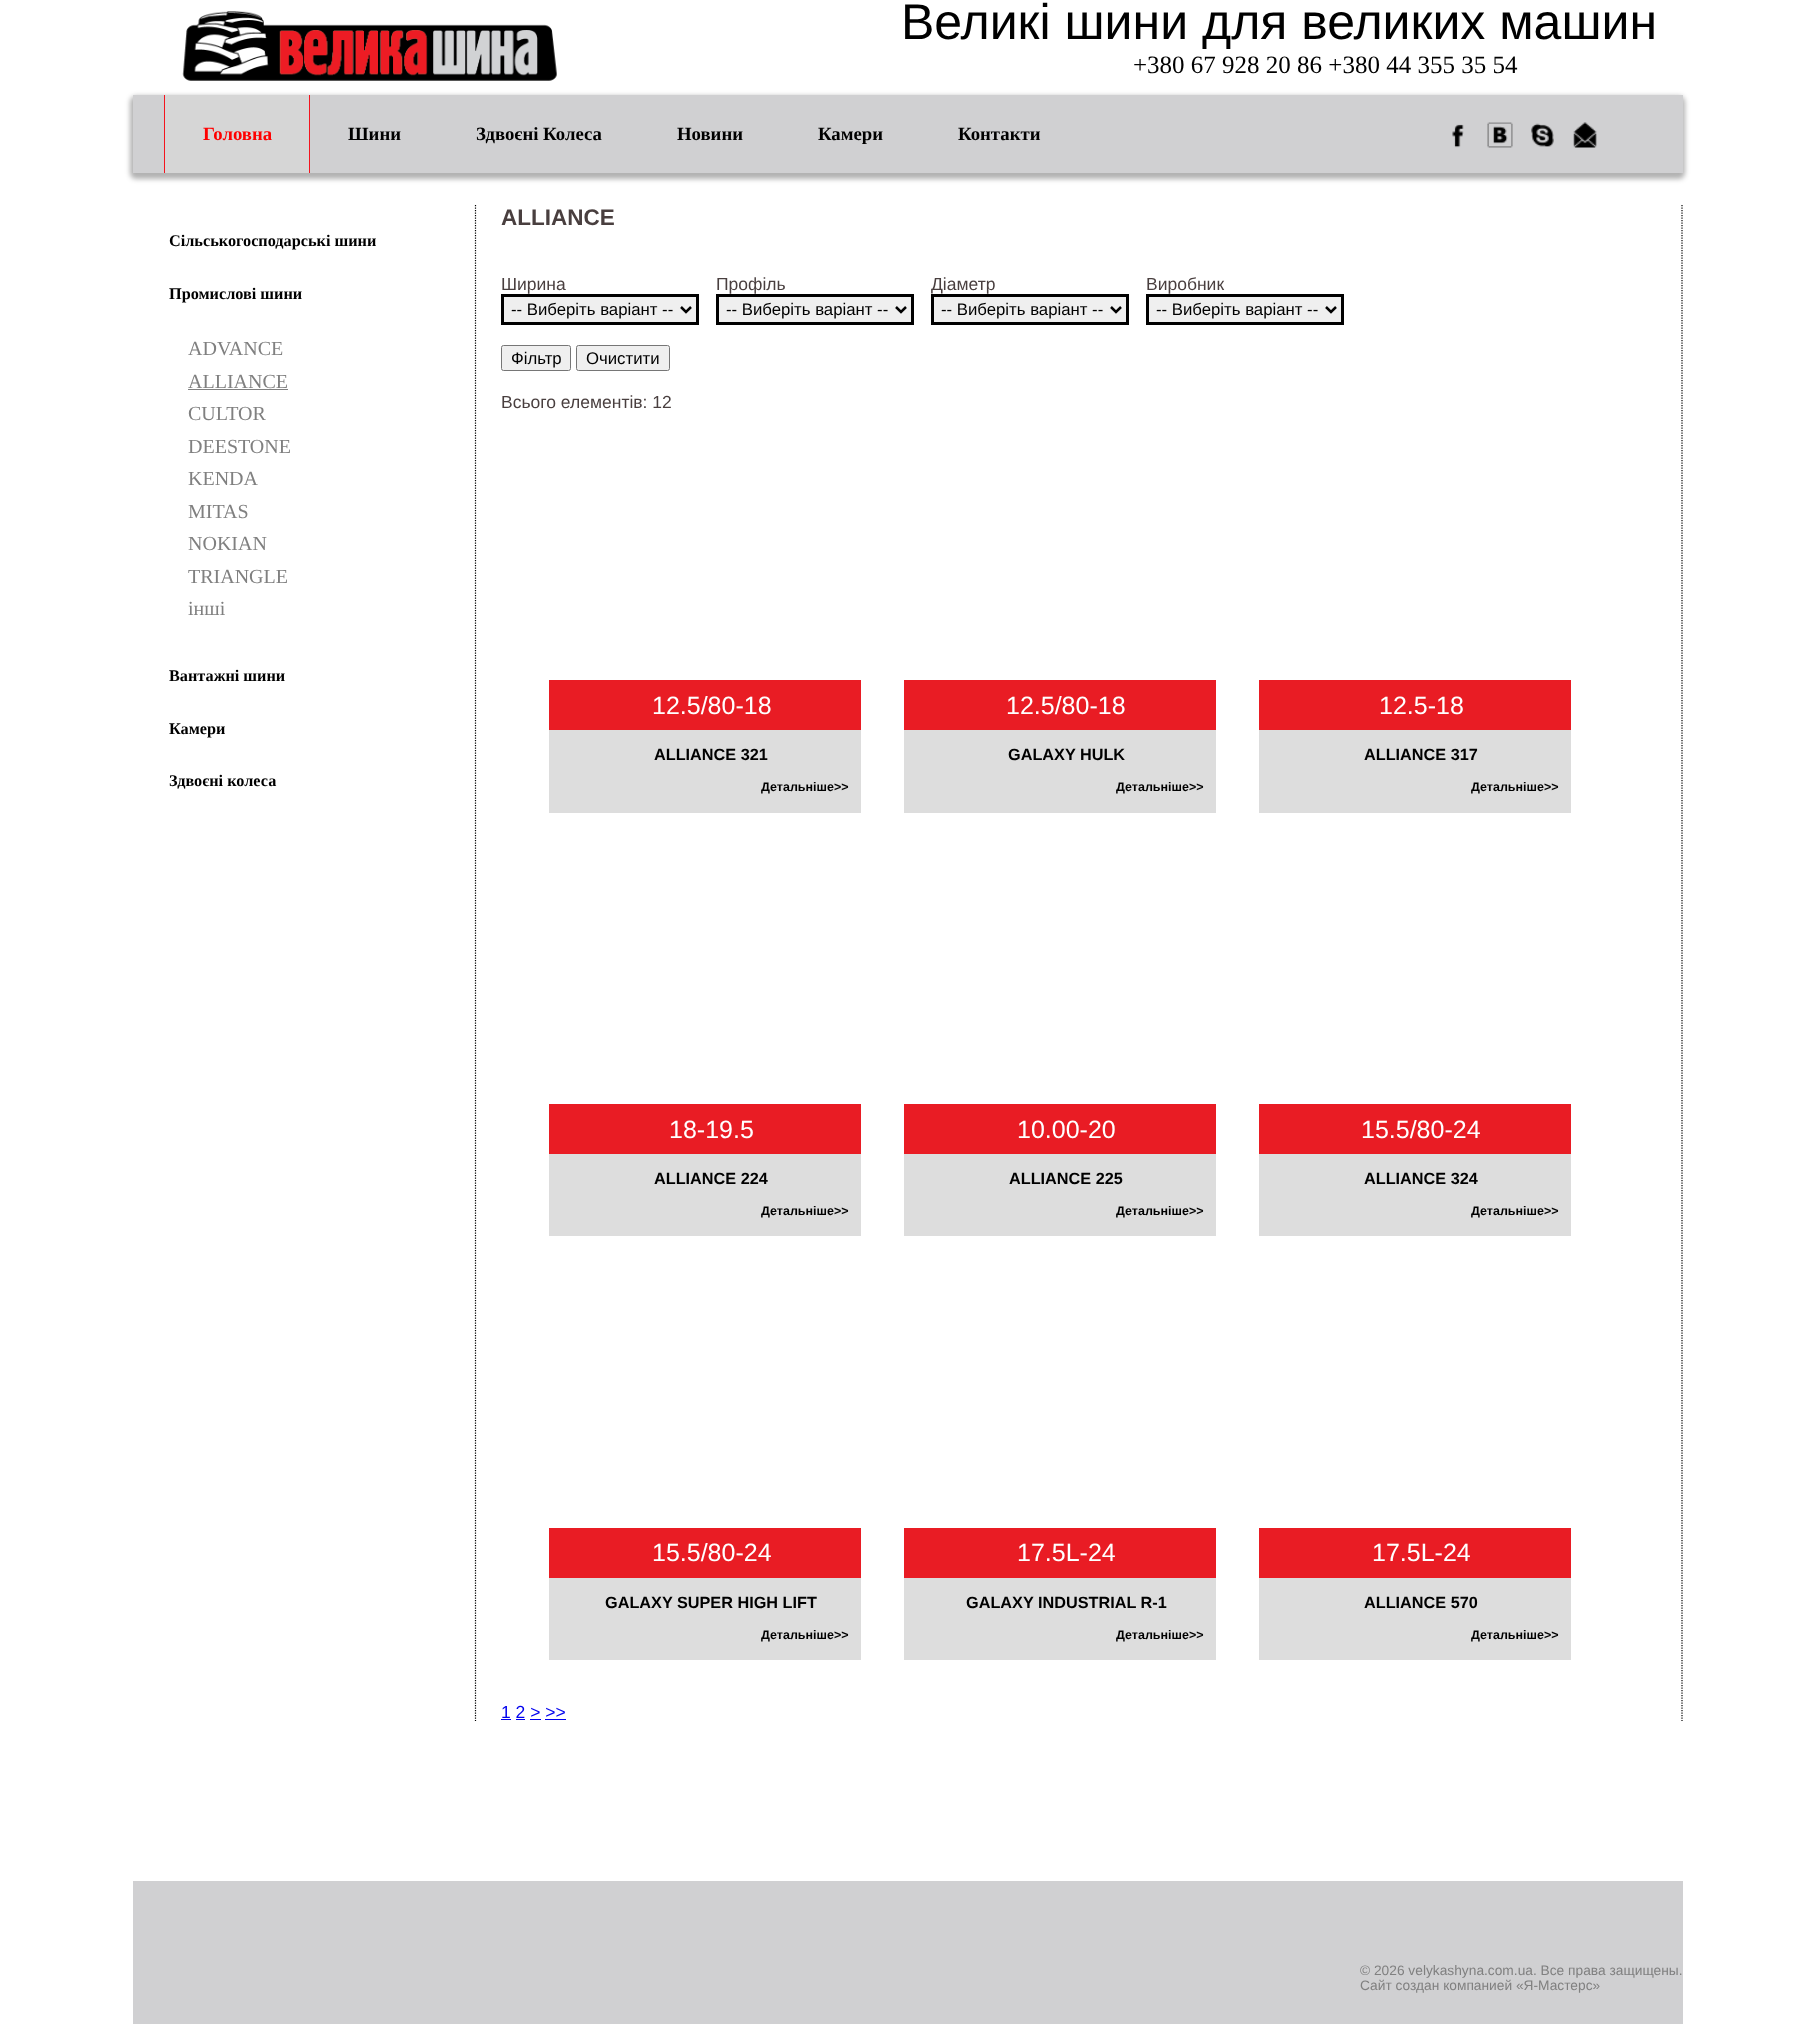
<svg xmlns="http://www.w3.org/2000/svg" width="1815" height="2024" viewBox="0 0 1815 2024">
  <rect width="100%" height="100%" fill="rgb(255,255,255)"/>
  <image x="182" y="11" width="375" height="70" href="pic1.png"/>
  <text x="901" y="39" font-family="Liberation Sans" font-size="50" fill="rgb(0,0,0)">Великі шини для великих машин</text>
  <text x="1133" y="73" font-family="Liberation Serif" font-size="25" fill="rgb(0,0,0)">+380 67 928 20 86 +380 44 355 35 54</text>
  <rect x="130" y="96" width="1555" height="83" rx="6" fill="rgba(0,0,0,0.3)" filter="blur(2.5px)"/>
  <rect x="133" y="95" width="1550" height="78" fill="rgb(208,208,210)"/>
  <rect x="165" y="95" width="144" height="78" fill="rgb(214,214,214)"/>
  <rect x="309" y="95" width="1" height="78" fill="rgb(244,20,30)"/>
  <rect x="164" y="95" width="1" height="78" fill="rgb(244,20,30)"/>
  <text x="203" y="140" font-family="Liberation Serif" font-size="18.75" font-weight="bold" fill="rgb(255,0,0)">Головна</text>
  <g font-family="Liberation Serif" font-size="18.75" font-weight="bold" fill="rgb(0,0,0)">
    <text x="348" y="140">Шини</text>
    <text x="476" y="140">Здвоєні Колеса</text>
    <text x="677" y="140">Новини</text>
    <text x="818" y="140">Камери</text>
    <text x="958" y="140">Контакти</text>
  </g>
  <image x="1452" y="124" width="12" height="24" href="pic2.png"/>
  <image x="1487" y="122" width="26" height="26" href="pic3.png"/>
  <image x="1531" y="123" width="23" height="24" href="pic4.png"/>
  <image x="1573" y="122" width="24" height="26" href="pic5.png"/>
  <g font-family="Liberation Serif" font-size="16.25" font-weight="bold" fill="rgb(0,0,0)">
    <text x="169" y="246">Сільськогосподарські шини</text>
    <text x="169" y="299">Промислові шини</text>
  </g>
  <g font-family="Liberation Serif" font-size="20" fill="rgb(128,128,128)">
    <text>
      <tspan x="188" y="355">ADVANCE</tspan>
      <tspan x="188" y="388">ALLIANCE</tspan>
    </text>
  </g>
  <rect x="188" y="389" width="100" height="1" fill="rgb(128,128,128)"/>
  <g font-family="Liberation Serif" font-size="20" fill="rgb(128,128,128)">
    <text>
      <tspan x="188" y="420">CULTOR</tspan>
      <tspan x="188" y="453">DEESTONE</tspan>
      <tspan x="188" y="485">KENDA</tspan>
      <tspan x="188" y="518">MITAS</tspan>
      <tspan x="188" y="550">NOKIAN</tspan>
      <tspan x="188" y="583">TRIANGLE</tspan>
      <tspan x="188" y="615">інші</tspan>
    </text>
  </g>
  <g font-family="Liberation Serif" font-size="16.25" font-weight="bold" fill="rgb(0,0,0)">
    <text x="169" y="681">Вантажні шини</text>
    <text x="169" y="734">Камери</text>
    <text x="169" y="786">Здвоєні колеса</text>
  </g>
  <path d="M1682 205V1721" fill="none" stroke="rgb(0,0,0)" stroke-width="1.2" stroke-dasharray="1.25 1.25"/>
  <path d="M475.5 205V1721" fill="none" stroke="rgb(0,0,0)" stroke-width="1.2" stroke-dasharray="1.25 1.25"/>
  <text x="501" y="225" font-family="Liberation Sans" font-size="22.5" font-weight="bold" fill="rgb(73,63,63)">ALLIANCE</text>
  <text x="501" y="290" font-family="Liberation Sans" font-size="17.5" fill="rgb(73,63,63)">Ширина</text>
  <rect x="502.5" y="295.5" width="195" height="28" fill="rgb(239,239,239)" stroke="rgb(0,0,0)" stroke-width="3"/>
  <path d="M681 307L686 312L691 307" fill="none" stroke="rgb(0,0,0)" stroke-width="2.5"/>
  <text x="511" y="315" font-family="Liberation Sans" font-size="16.75" fill="rgb(0,0,0)">-- Виберіть варіант --</text>
  <text x="716" y="290" font-family="Liberation Sans" font-size="17.5" fill="rgb(73,63,63)">Профіль</text>
  <rect x="717.5" y="295.5" width="195" height="28" fill="rgb(239,239,239)" stroke="rgb(0,0,0)" stroke-width="3"/>
  <path d="M896 307L901 312L906 307" fill="none" stroke="rgb(0,0,0)" stroke-width="2.5"/>
  <text x="726" y="315" font-family="Liberation Sans" font-size="16.75" fill="rgb(0,0,0)">-- Виберіть варіант --</text>
  <text x="931" y="290" font-family="Liberation Sans" font-size="17.5" fill="rgb(73,63,63)">Діаметр</text>
  <rect x="932.5" y="295.5" width="195" height="28" fill="rgb(239,239,239)" stroke="rgb(0,0,0)" stroke-width="3"/>
  <path d="M1111 307L1116 312L1121 307" fill="none" stroke="rgb(0,0,0)" stroke-width="2.5"/>
  <text x="941" y="315" font-family="Liberation Sans" font-size="16.75" fill="rgb(0,0,0)">-- Виберіть варіант --</text>
  <text x="1146" y="290" font-family="Liberation Sans" font-size="17.5" fill="rgb(73,63,63)">Виробник</text>
  <rect x="1147.5" y="295.5" width="195" height="28" fill="rgb(239,239,239)" stroke="rgb(0,0,0)" stroke-width="3"/>
  <path d="M1326 307L1331 312L1336 307" fill="none" stroke="rgb(0,0,0)" stroke-width="2.5"/>
  <text x="1156" y="315" font-family="Liberation Sans" font-size="16.75" fill="rgb(0,0,0)">-- Виберіть варіант --</text>
  <rect x="501.5" y="345.5" width="69" height="25" rx="2" fill="rgb(239,239,239)" stroke="rgb(118,118,118)"/>
  <text x="511" y="364" font-family="Liberation Sans" font-size="16.75" fill="rgb(0,0,0)">Фільтр</text>
  <rect x="576.5" y="345.5" width="93" height="25" rx="2" fill="rgb(239,239,239)" stroke="rgb(118,118,118)"/>
  <text x="586" y="364" font-family="Liberation Sans" font-size="16.75" fill="rgb(0,0,0)">Очистити</text>
  <text x="501" y="408" font-family="Liberation Sans" font-size="17.5" fill="rgb(73,63,63)">Всього елементів: 12</text>
  <rect x="549" y="680" width="312" height="50" fill="rgb(233,28,36)"/>
  <text x="652" y="714" font-family="Liberation Sans" font-size="25" fill="rgb(255,255,255)">12.5/80-18</text>
  <rect x="549" y="730" width="312" height="83" fill="rgb(221,221,221)"/>
  <text x="654" y="760" font-family="Liberation Sans" font-size="16.25" font-weight="bold" fill="rgb(0,0,0)">ALLIANCE 321</text>
  <text x="761" y="791" font-family="Liberation Sans" font-size="12.5" font-weight="bold" fill="rgb(0,0,0)">Детальніше&gt;&gt;</text>
  <rect x="904" y="680" width="312" height="50" fill="rgb(233,28,36)"/>
  <text x="1006" y="714" font-family="Liberation Sans" font-size="25" fill="rgb(255,255,255)">12.5/80-18</text>
  <rect x="904" y="730" width="312" height="83" fill="rgb(221,221,221)"/>
  <text x="1008" y="760" font-family="Liberation Sans" font-size="16.25" font-weight="bold" fill="rgb(0,0,0)">GALAXY HULK</text>
  <text x="1116" y="791" font-family="Liberation Sans" font-size="12.5" font-weight="bold" fill="rgb(0,0,0)">Детальніше&gt;&gt;</text>
  <rect x="1259" y="680" width="312" height="50" fill="rgb(233,28,36)"/>
  <text x="1379" y="714" font-family="Liberation Sans" font-size="25" fill="rgb(255,255,255)">12.5-18</text>
  <rect x="1259" y="730" width="312" height="83" fill="rgb(221,221,221)"/>
  <text x="1364" y="760" font-family="Liberation Sans" font-size="16.25" font-weight="bold" fill="rgb(0,0,0)">ALLIANCE 317</text>
  <text x="1471" y="791" font-family="Liberation Sans" font-size="12.5" font-weight="bold" fill="rgb(0,0,0)">Детальніше&gt;&gt;</text>
  <rect x="549" y="1104" width="312" height="50" fill="rgb(233,28,36)"/>
  <text x="669" y="1138" font-family="Liberation Sans" font-size="25" fill="rgb(255,255,255)">18-19.5</text>
  <rect x="549" y="1154" width="312" height="82" fill="rgb(221,221,221)"/>
  <text x="654" y="1184" font-family="Liberation Sans" font-size="16.25" font-weight="bold" fill="rgb(0,0,0)">ALLIANCE 224</text>
  <text x="761" y="1215" font-family="Liberation Sans" font-size="12.5" font-weight="bold" fill="rgb(0,0,0)">Детальніше&gt;&gt;</text>
  <rect x="904" y="1104" width="312" height="50" fill="rgb(233,28,36)"/>
  <text x="1017" y="1138" font-family="Liberation Sans" font-size="25" fill="rgb(255,255,255)">10.00-20</text>
  <rect x="904" y="1154" width="312" height="82" fill="rgb(221,221,221)"/>
  <text x="1009" y="1184" font-family="Liberation Sans" font-size="16.25" font-weight="bold" fill="rgb(0,0,0)">ALLIANCE 225</text>
  <text x="1116" y="1215" font-family="Liberation Sans" font-size="12.5" font-weight="bold" fill="rgb(0,0,0)">Детальніше&gt;&gt;</text>
  <rect x="1259" y="1104" width="312" height="50" fill="rgb(233,28,36)"/>
  <text x="1361" y="1138" font-family="Liberation Sans" font-size="25" fill="rgb(255,255,255)">15.5/80-24</text>
  <rect x="1259" y="1154" width="312" height="82" fill="rgb(221,221,221)"/>
  <text x="1364" y="1184" font-family="Liberation Sans" font-size="16.25" font-weight="bold" fill="rgb(0,0,0)">ALLIANCE 324</text>
  <text x="1471" y="1215" font-family="Liberation Sans" font-size="12.5" font-weight="bold" fill="rgb(0,0,0)">Детальніше&gt;&gt;</text>
  <rect x="549" y="1528" width="312" height="50" fill="rgb(233,28,36)"/>
  <text x="652" y="1561" font-family="Liberation Sans" font-size="25" fill="rgb(255,255,255)">15.5/80-24</text>
  <rect x="549" y="1578" width="312" height="82" fill="rgb(221,221,221)"/>
  <text x="605" y="1608" font-family="Liberation Sans" font-size="16.25" font-weight="bold" fill="rgb(0,0,0)">GALAXY SUPER HIGH LIFT</text>
  <text x="761" y="1639" font-family="Liberation Sans" font-size="12.5" font-weight="bold" fill="rgb(0,0,0)">Детальніше&gt;&gt;</text>
  <rect x="904" y="1528" width="312" height="50" fill="rgb(233,28,36)"/>
  <text x="1017" y="1561" font-family="Liberation Sans" font-size="25" fill="rgb(255,255,255)">17.5L-24</text>
  <rect x="904" y="1578" width="312" height="82" fill="rgb(221,221,221)"/>
  <text x="966" y="1608" font-family="Liberation Sans" font-size="16.25" font-weight="bold" fill="rgb(0,0,0)">GALAXY INDUSTRIAL R-1</text>
  <text x="1116" y="1639" font-family="Liberation Sans" font-size="12.5" font-weight="bold" fill="rgb(0,0,0)">Детальніше&gt;&gt;</text>
  <rect x="1259" y="1528" width="312" height="50" fill="rgb(233,28,36)"/>
  <text x="1372" y="1561" font-family="Liberation Sans" font-size="25" fill="rgb(255,255,255)">17.5L-24</text>
  <rect x="1259" y="1578" width="312" height="82" fill="rgb(221,221,221)"/>
  <text x="1364" y="1608" font-family="Liberation Sans" font-size="16.25" font-weight="bold" fill="rgb(0,0,0)">ALLIANCE 570</text>
  <text x="1471" y="1639" font-family="Liberation Sans" font-size="12.5" font-weight="bold" fill="rgb(0,0,0)">Детальніше&gt;&gt;</text>
  <text x="501" y="1718" font-family="Liberation Sans" font-size="17.5" fill="rgb(0,0,238)">1 2 &gt; &gt;&gt;</text>
  <rect x="501" y="1719" width="10" height="1" fill="rgb(0,0,238)"/>
  <rect x="516" y="1719" width="9" height="1" fill="rgb(0,0,238)"/>
  <rect x="530" y="1719" width="11" height="1" fill="rgb(0,0,238)"/>
  <rect x="545" y="1719" width="21" height="1" fill="rgb(0,0,238)"/>
  <rect x="133" y="1881" width="1550" height="143" fill="rgb(208,208,210)"/>
  <g font-family="Liberation Sans" font-size="13.75" fill="rgb(128,128,128)">
    <text>
      <tspan x="1360" y="1975">© 2026 velykashyna.com.ua. Все права защищены.</tspan>
      <tspan x="1360" y="1990">Сайт создан компанией «Я-Мастерс»</tspan>
    </text>
  </g>
</svg>
